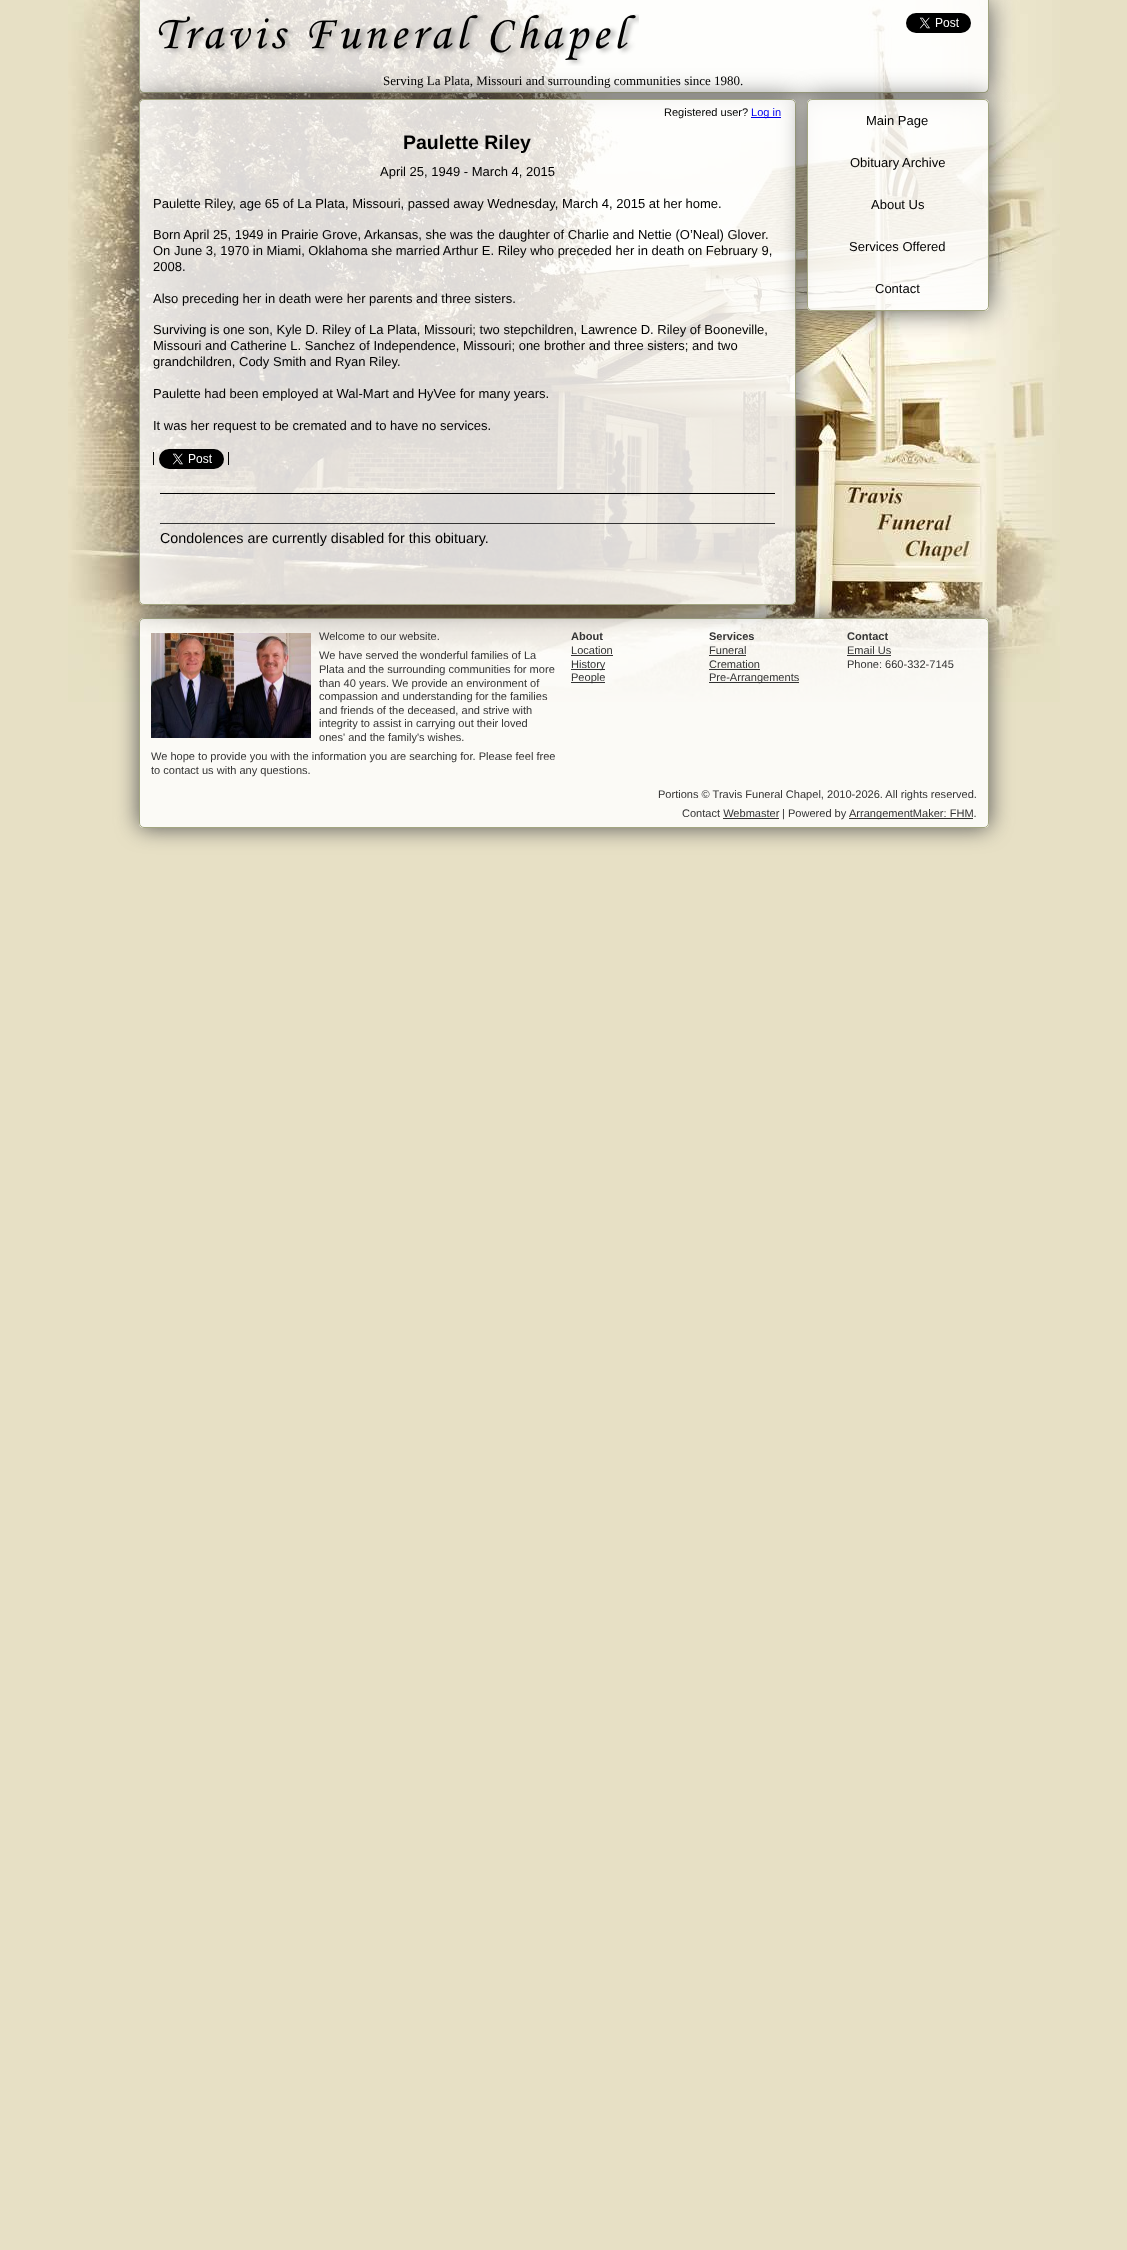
<svg xmlns="http://www.w3.org/2000/svg" width="1127" height="2250" viewBox="0 0 1127 2250">
  <defs>
    <clipPath id="clip1"><path d="M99 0H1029V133H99ZM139 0H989V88C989 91 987 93 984 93H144C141 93 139 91 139 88Z" clip-rule="evenodd"/></clipPath>
    <clipPath id="clip2"><path d="M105 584H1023V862H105ZM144 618H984C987 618 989 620 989 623V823C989 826 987 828 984 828H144C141 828 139 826 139 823V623C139 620 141 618 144 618Z" clip-rule="evenodd"/></clipPath>
    <clipPath id="clip3"><path d="M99 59H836V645H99ZM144 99H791C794 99 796 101 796 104V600C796 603 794 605 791 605H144C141 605 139 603 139 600V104C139 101 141 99 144 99Z" clip-rule="evenodd"/></clipPath>
    <clipPath id="clip4"><path d="M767 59H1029V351H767ZM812 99H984C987 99 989 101 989 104V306C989 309 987 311 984 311H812C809 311 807 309 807 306V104C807 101 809 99 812 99Z" clip-rule="evenodd"/></clipPath>
  </defs>
  <rect width="100%" height="100%" fill="rgb(231,224,197)"/>
  <image x="68" y="0" width="992" height="702" href="pic1.png"/>
  <g clip-path="url(#clip1)">
    <rect x="139" y="0" width="850" height="93" rx="5" fill="rgb(85,85,85)" filter="blur(13px)"/>
  </g>
  <image x="139" y="0" width="850" height="93" href="pic2.png"/>
  <path d="M139 0H989V88C989 91 987 93 984 93H144C141 93 139 91 139 88ZM140 0H988V88C988 90 986 92 984 92H144C142 92 140 90 140 88Z" fill="rgb(162,165,128)" fill-rule="evenodd"/>
  <g clip-path="url(#clip2)">
    <rect x="139" y="618" width="850" height="210" rx="5" fill="rgb(85,85,85)" filter="blur(11px)"/>
  </g>
  <image x="139" y="618" width="850" height="210" href="pic8.png"/>
  <rect x="139.5" y="618.5" width="849" height="209" rx="4.5" fill="none" stroke="rgb(162,165,128)"/>
  <g clip-path="url(#clip3)">
    <rect x="139" y="99" width="657" height="506" rx="5" fill="rgb(85,85,85)" filter="blur(13px)"/>
  </g>
  <image x="158" y="14" width="481" height="52" href="pic3.png"/>
  <image x="906" y="13" width="65" height="20" href="pic4.png"/>
  <text x="383" y="85" font-family="Liberation Serif" font-size="13" fill="rgb(0,0,0)">Serving La Plata, Missouri and surrounding communities since 1980.</text>
  <image x="139" y="99" width="657" height="506" href="pic5.png"/>
  <rect x="139.5" y="99.5" width="656" height="505" rx="4.5" fill="none" stroke="rgb(162,165,128)"/>
  <text x="664" y="116" font-family="Liberation Sans" font-size="11.05" fill="rgb(0,0,0)">Registered user?</text>
  <rect x="751" y="117" width="30" height="1" fill="rgb(0,0,238)"/>
  <text x="751" y="116" font-family="Liberation Sans" font-size="11.05" fill="rgb(0,0,238)">Log in</text>
  <text x="403" y="149" font-family="Liberation Sans" font-size="19.5" font-weight="bold" fill="rgb(0,0,0)">Paulette Riley</text>
  <g font-family="Liberation Sans" font-size="13" fill="rgb(0,0,0)">
    <text x="380" y="176">April 25, 1949 - March 4, 2015</text>
    <text x="153" y="208">Paulette Riley, age 65 of La Plata, Missouri, passed away Wednesday, March 4, 2015 at her home.</text>
    <text>
      <tspan x="153" y="239">Born April 25, 1949 in Prairie Grove, Arkansas, she was the daughter of Charlie and Nettie (O’Neal) Glover.</tspan>
      <tspan x="153" y="255">On June 3, 1970 in Miami, Oklahoma she married Arthur E. Riley who preceded her in death on February 9,</tspan>
      <tspan x="153" y="271">2008.</tspan>
    </text>
    <text x="153" y="303">Also preceding her in death were her parents and three sisters.</text>
    <text>
      <tspan x="153" y="334">Surviving is one son, Kyle D. Riley of La Plata, Missouri; two stepchildren, Lawrence D. Riley of Booneville,</tspan>
      <tspan x="153" y="350">Missouri and Catherine L. Sanchez of Independence, Missouri; one brother and three sisters; and two</tspan>
      <tspan x="153" y="366">grandchildren, Cody Smith and Ryan Riley.</tspan>
    </text>
    <text x="153" y="398">Paulette had been employed at Wal-Mart and HyVee for many years.</text>
    <text x="153" y="430">It was her request to be cremated and to have no services.</text>
  </g>
  <rect x="153" y="452" width="1" height="13" fill="rgb(0,0,0)"/>
  <image x="159" y="449" width="65" height="20" href="pic6.png"/>
  <rect x="228" y="452" width="1" height="13" fill="rgb(0,0,0)"/>
  <rect x="160" y="493" width="615" height="1" fill="rgb(0,0,0)"/>
  <rect x="160" y="523" width="615" height="1" fill="rgb(51,51,51)"/>
  <text x="160" y="543" font-family="Liberation Sans" font-size="14.3" fill="rgb(0,0,0)">Condolences are currently disabled for this obituary.</text>
  <g clip-path="url(#clip4)">
    <rect x="807" y="99" width="182" height="212" rx="5" fill="rgb(85,85,85)" filter="blur(13px)"/>
  </g>
  <image x="807" y="99" width="182" height="212" href="pic7.png"/>
  <rect x="807.5" y="99.5" width="181" height="211" rx="4.5" fill="none" stroke="rgb(162,165,128)"/>
  <g font-family="Liberation Sans" font-size="13" fill="rgb(0,0,0)">
    <text x="866" y="125">Main Page</text>
    <text x="850" y="167">Obituary Archive</text>
    <text x="871" y="209">About Us</text>
    <text x="849" y="251">Services Offered</text>
    <text x="875" y="293">Contact</text>
  </g>
  <image x="151" y="633" width="160" height="105" href="pic9.png"/>
  <g font-family="Liberation Sans" font-size="11.05" fill="rgb(51,51,51)">
    <text>
      <tspan x="319" y="640">Welcome to our website.</tspan>
      <tspan x="319" y="659">We have served the wonderful families of La</tspan>
      <tspan x="319" y="673">Plata and the surrounding communities for more</tspan>
      <tspan x="319" y="687">than 40 years. We provide an environment of</tspan>
      <tspan x="319" y="700">compassion and understanding for the families</tspan>
      <tspan x="319" y="714">and friends of the deceased, and strive with</tspan>
      <tspan x="319" y="727">integrity to assist in carrying out their loved</tspan>
      <tspan x="319" y="741">ones' and the family's wishes.</tspan>
    </text>
    <text>
      <tspan x="151" y="760">We hope to provide you with the information you are searching for. Please feel free</tspan>
      <tspan x="151" y="774">to contact us with any questions.</tspan>
    </text>
  </g>
  <text x="571" y="640" font-family="Liberation Sans" font-size="11.05" font-weight="bold" fill="rgb(51,51,51)">About</text>
  <text x="571" y="654" font-family="Liberation Sans" font-size="11.05" fill="rgb(51,51,51)">Location</text>
  <rect x="571" y="655" width="42" height="1" fill="rgb(51,51,51)"/>
  <rect x="571" y="669" width="34" height="1" fill="rgb(51,51,51)"/>
  <text x="571" y="668" font-family="Liberation Sans" font-size="11.05" fill="rgb(51,51,51)">History</text>
  <rect x="571" y="682" width="34" height="1" fill="rgb(51,51,51)"/>
  <text x="571" y="681" font-family="Liberation Sans" font-size="11.05" fill="rgb(51,51,51)">People</text>
  <text x="709" y="640" font-family="Liberation Sans" font-size="11.05" font-weight="bold" fill="rgb(51,51,51)">Services</text>
  <text x="709" y="654" font-family="Liberation Sans" font-size="11.05" fill="rgb(51,51,51)">Funeral</text>
  <rect x="709" y="655" width="37" height="1" fill="rgb(51,51,51)"/>
  <text x="709" y="668" font-family="Liberation Sans" font-size="11.05" fill="rgb(51,51,51)">Cremation</text>
  <rect x="709" y="669" width="51" height="1" fill="rgb(51,51,51)"/>
  <rect x="709" y="682" width="90" height="1" fill="rgb(51,51,51)"/>
  <text x="709" y="681" font-family="Liberation Sans" font-size="11.05" fill="rgb(51,51,51)">Pre-Arrangements</text>
  <text x="847" y="640" font-family="Liberation Sans" font-size="11.05" font-weight="bold" fill="rgb(51,51,51)">Contact</text>
  <text x="847" y="654" font-family="Liberation Sans" font-size="11.05" fill="rgb(51,51,51)">Email Us</text>
  <rect x="847" y="655" width="44" height="1" fill="rgb(51,51,51)"/>
  <g font-family="Liberation Sans" font-size="11.05" fill="rgb(51,51,51)">
    <text x="847" y="668">Phone: 660-332-7145</text>
    <text x="658" y="798">Portions © Travis Funeral Chapel, 2010-2026. All rights reserved.</text>
    <text x="682" y="817">Contact Webmaster</text>
    <text x="782" y="817">| Powered by</text>
  </g>
  <rect x="849" y="818" width="124" height="1" fill="rgb(51,51,51)"/>
  <text x="849" y="817" font-family="Liberation Sans" font-size="11.05" fill="rgb(51,51,51)">ArrangementMaker: FHM.</text>
  <rect x="723" y="818" width="56" height="1" fill="rgb(51,51,51)"/>
</svg>
